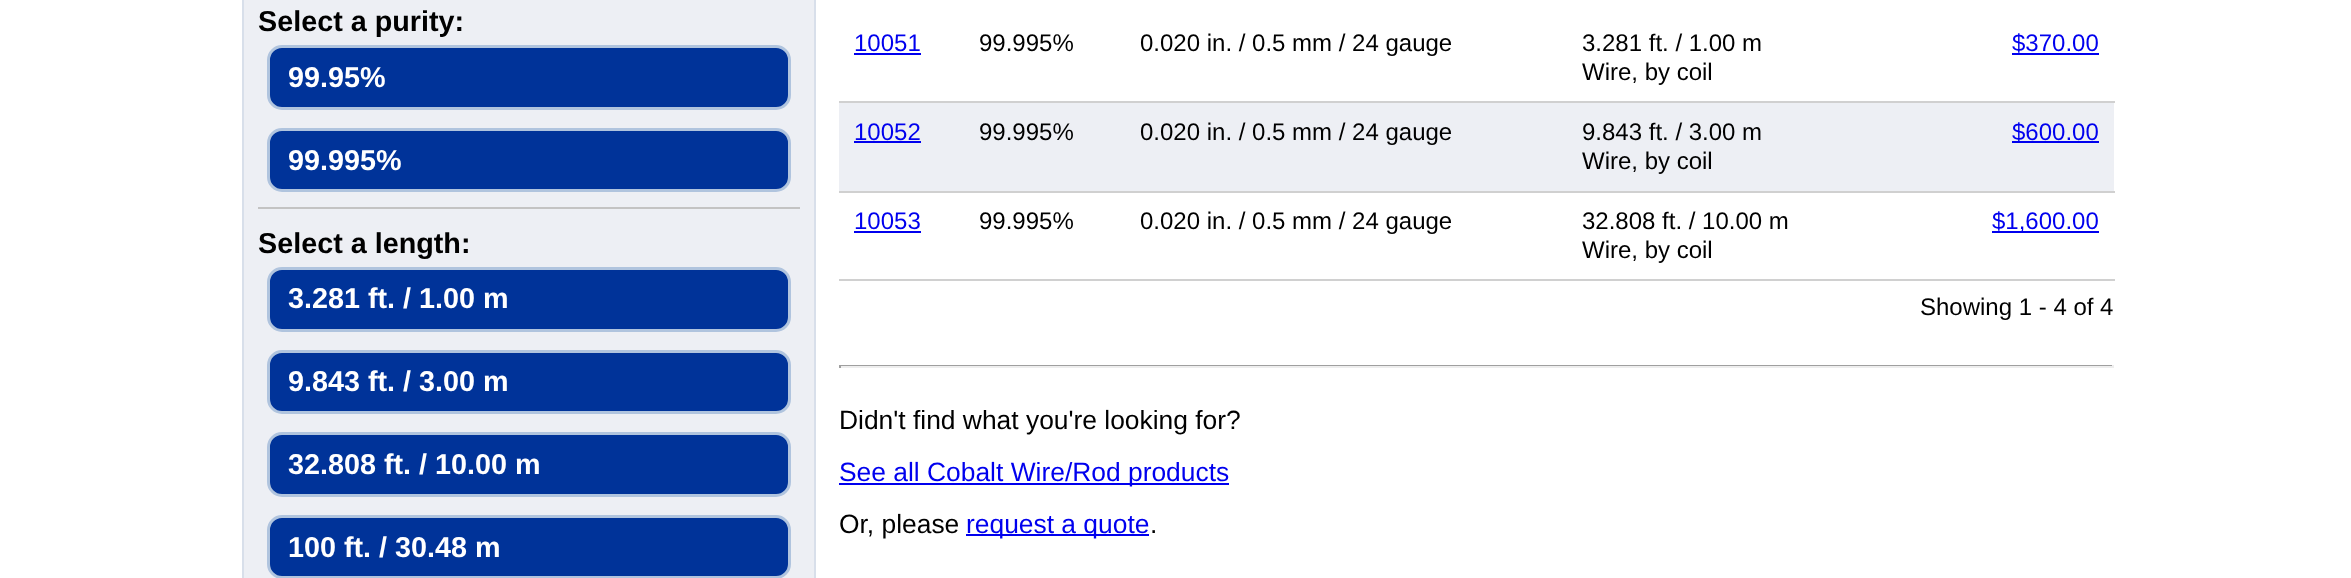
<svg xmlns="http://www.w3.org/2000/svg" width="2351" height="578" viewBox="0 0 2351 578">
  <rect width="100%" height="100%" fill="rgb(255,255,255)"/>
  <rect x="243" y="-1" width="572" height="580" fill="rgb(237,239,244)" stroke="rgb(216,223,234)" stroke-width="2"/>
  <rect x="258" y="207" width="542" height="2" fill="rgb(195,195,195)"/>
  <text x="258" y="31" font-family="Liberation Sans" font-size="28.75" font-weight="bold" fill="rgb(0,0,0)">Select a purity:</text>
  <rect x="268.5" y="46.5" width="521" height="62" rx="13.5" fill="rgb(0,51,153)" stroke="rgb(176,196,222)" stroke-width="3"/>
  <text x="288" y="87" font-family="Liberation Sans" font-size="28.75" font-weight="bold" fill="rgb(255,255,255)">99.95%</text>
  <rect x="268.5" y="129.5" width="521" height="61" rx="13.5" fill="rgb(0,51,153)" stroke="rgb(176,196,222)" stroke-width="3"/>
  <text x="288" y="170" font-family="Liberation Sans" font-size="28.75" font-weight="bold" fill="rgb(255,255,255)">99.995%</text>
  <text x="258" y="253" font-family="Liberation Sans" font-size="28.75" font-weight="bold" fill="rgb(0,0,0)">Select a length:</text>
  <rect x="268.5" y="268.5" width="521" height="62" rx="13.5" fill="rgb(0,51,153)" stroke="rgb(176,196,222)" stroke-width="3"/>
  <text x="288" y="308" font-family="Liberation Sans" font-size="28.75" font-weight="bold" fill="rgb(255,255,255)">3.281 ft. / 1.00 m</text>
  <rect x="268.5" y="351.5" width="521" height="61" rx="13.5" fill="rgb(0,51,153)" stroke="rgb(176,196,222)" stroke-width="3"/>
  <text x="288" y="391" font-family="Liberation Sans" font-size="28.75" font-weight="bold" fill="rgb(255,255,255)">9.843 ft. / 3.00 m</text>
  <rect x="268.5" y="433.5" width="521" height="62" rx="13.5" fill="rgb(0,51,153)" stroke="rgb(176,196,222)" stroke-width="3"/>
  <text x="288" y="474" font-family="Liberation Sans" font-size="28.75" font-weight="bold" fill="rgb(255,255,255)">32.808 ft. / 10.00 m</text>
  <rect x="268.5" y="516.5" width="521" height="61" rx="13.5" fill="rgb(0,51,153)" stroke="rgb(176,196,222)" stroke-width="3"/>
  <text x="288" y="557" font-family="Liberation Sans" font-size="28.75" font-weight="bold" fill="rgb(255,255,255)">100 ft. / 30.48 m</text>
  <text x="854" y="51" font-family="Liberation Sans" font-size="24" fill="rgb(0,0,238)">10051</text>
  <rect x="854" y="53" width="67" height="2" fill="rgb(0,0,238)"/>
  <g font-family="Liberation Sans" font-size="24" fill="rgb(0,0,0)">
    <text x="979" y="51">99.995%</text>
    <text x="1140" y="51">0.020 in. / 0.5 mm / 24 gauge</text>
    <text>
      <tspan x="1582" y="51">3.281 ft. / 1.00 m</tspan>
      <tspan x="1582" y="80">Wire, by coil</tspan>
    </text>
  </g>
  <rect x="839" y="101" width="1276" height="2" fill="rgb(208,208,208)"/>
  <text x="2012" y="51" font-family="Liberation Sans" font-size="24" fill="rgb(0,0,238)">$370.00</text>
  <rect x="2012" y="53" width="87" height="2" fill="rgb(0,0,238)"/>
  <rect x="839" y="103" width="1275" height="88" fill="rgb(237,239,244)"/>
  <text x="854" y="140" font-family="Liberation Sans" font-size="24" fill="rgb(0,0,238)">10052</text>
  <rect x="854" y="141" width="67" height="2" fill="rgb(0,0,238)"/>
  <g font-family="Liberation Sans" font-size="24" fill="rgb(0,0,0)">
    <text x="979" y="140">99.995%</text>
    <text x="1140" y="140">0.020 in. / 0.5 mm / 24 gauge</text>
    <text>
      <tspan x="1582" y="140">9.843 ft. / 3.00 m</tspan>
      <tspan x="1582" y="169">Wire, by coil</tspan>
    </text>
  </g>
  <rect x="839" y="191" width="1276" height="2" fill="rgb(208,208,208)"/>
  <rect x="2012" y="141" width="87" height="2" fill="rgb(0,0,238)"/>
  <g font-family="Liberation Sans" font-size="24" fill="rgb(0,0,238)">
    <text x="2012" y="140">$600.00</text>
    <text x="854" y="229">10053</text>
  </g>
  <rect x="854" y="231" width="67" height="2" fill="rgb(0,0,238)"/>
  <g font-family="Liberation Sans" font-size="24" fill="rgb(0,0,0)">
    <text x="979" y="229">99.995%</text>
    <text x="1140" y="229">0.020 in. / 0.5 mm / 24 gauge</text>
    <text>
      <tspan x="1582" y="229">32.808 ft. / 10.00 m</tspan>
      <tspan x="1582" y="258">Wire, by coil</tspan>
    </text>
  </g>
  <rect x="839" y="279" width="1276" height="2" fill="rgb(208,208,208)"/>
  <rect x="1992" y="231" width="107" height="2" fill="rgb(0,0,238)"/>
  <text x="1992" y="229" font-family="Liberation Sans" font-size="24" fill="rgb(0,0,238)">$1,600.00</text>
  <text x="1920" y="315" font-family="Liberation Sans" font-size="24" fill="rgb(0,0,0)">Showing 1 - 4 of 4</text>
  <rect x="839" y="365" width="1275" height="1" fill="rgb(159,159,159)"/>
  <rect x="2112" y="365" width="2" height="3" fill="rgb(238,238,238)"/>
  <rect x="839" y="366" width="1275" height="2" fill="rgb(238,238,238)"/>
  <rect x="839" y="365" width="2" height="3" fill="rgb(159,159,159)"/>
  <text x="839" y="429" font-family="Liberation Sans" font-size="26.4" fill="rgb(0,0,0)">Didn't find what you're looking for?</text>
  <rect x="839" y="483" width="390" height="2" fill="rgb(0,0,238)"/>
  <text x="839" y="481" font-family="Liberation Sans" font-size="26.4" fill="rgb(0,0,238)">See all Cobalt Wire/Rod products</text>
  <text x="839" y="533" font-family="Liberation Sans" font-size="26.4" fill="rgb(0,0,0)">Or, please</text>
  <rect x="966" y="534" width="183" height="2" fill="rgb(0,0,238)"/>
  <text x="966" y="533" font-family="Liberation Sans" font-size="26.4" fill="rgb(0,0,238)">request a quote</text>
  <text x="1150" y="533" font-family="Liberation Sans" font-size="26.4" fill="rgb(0,0,0)">.</text>
</svg>
